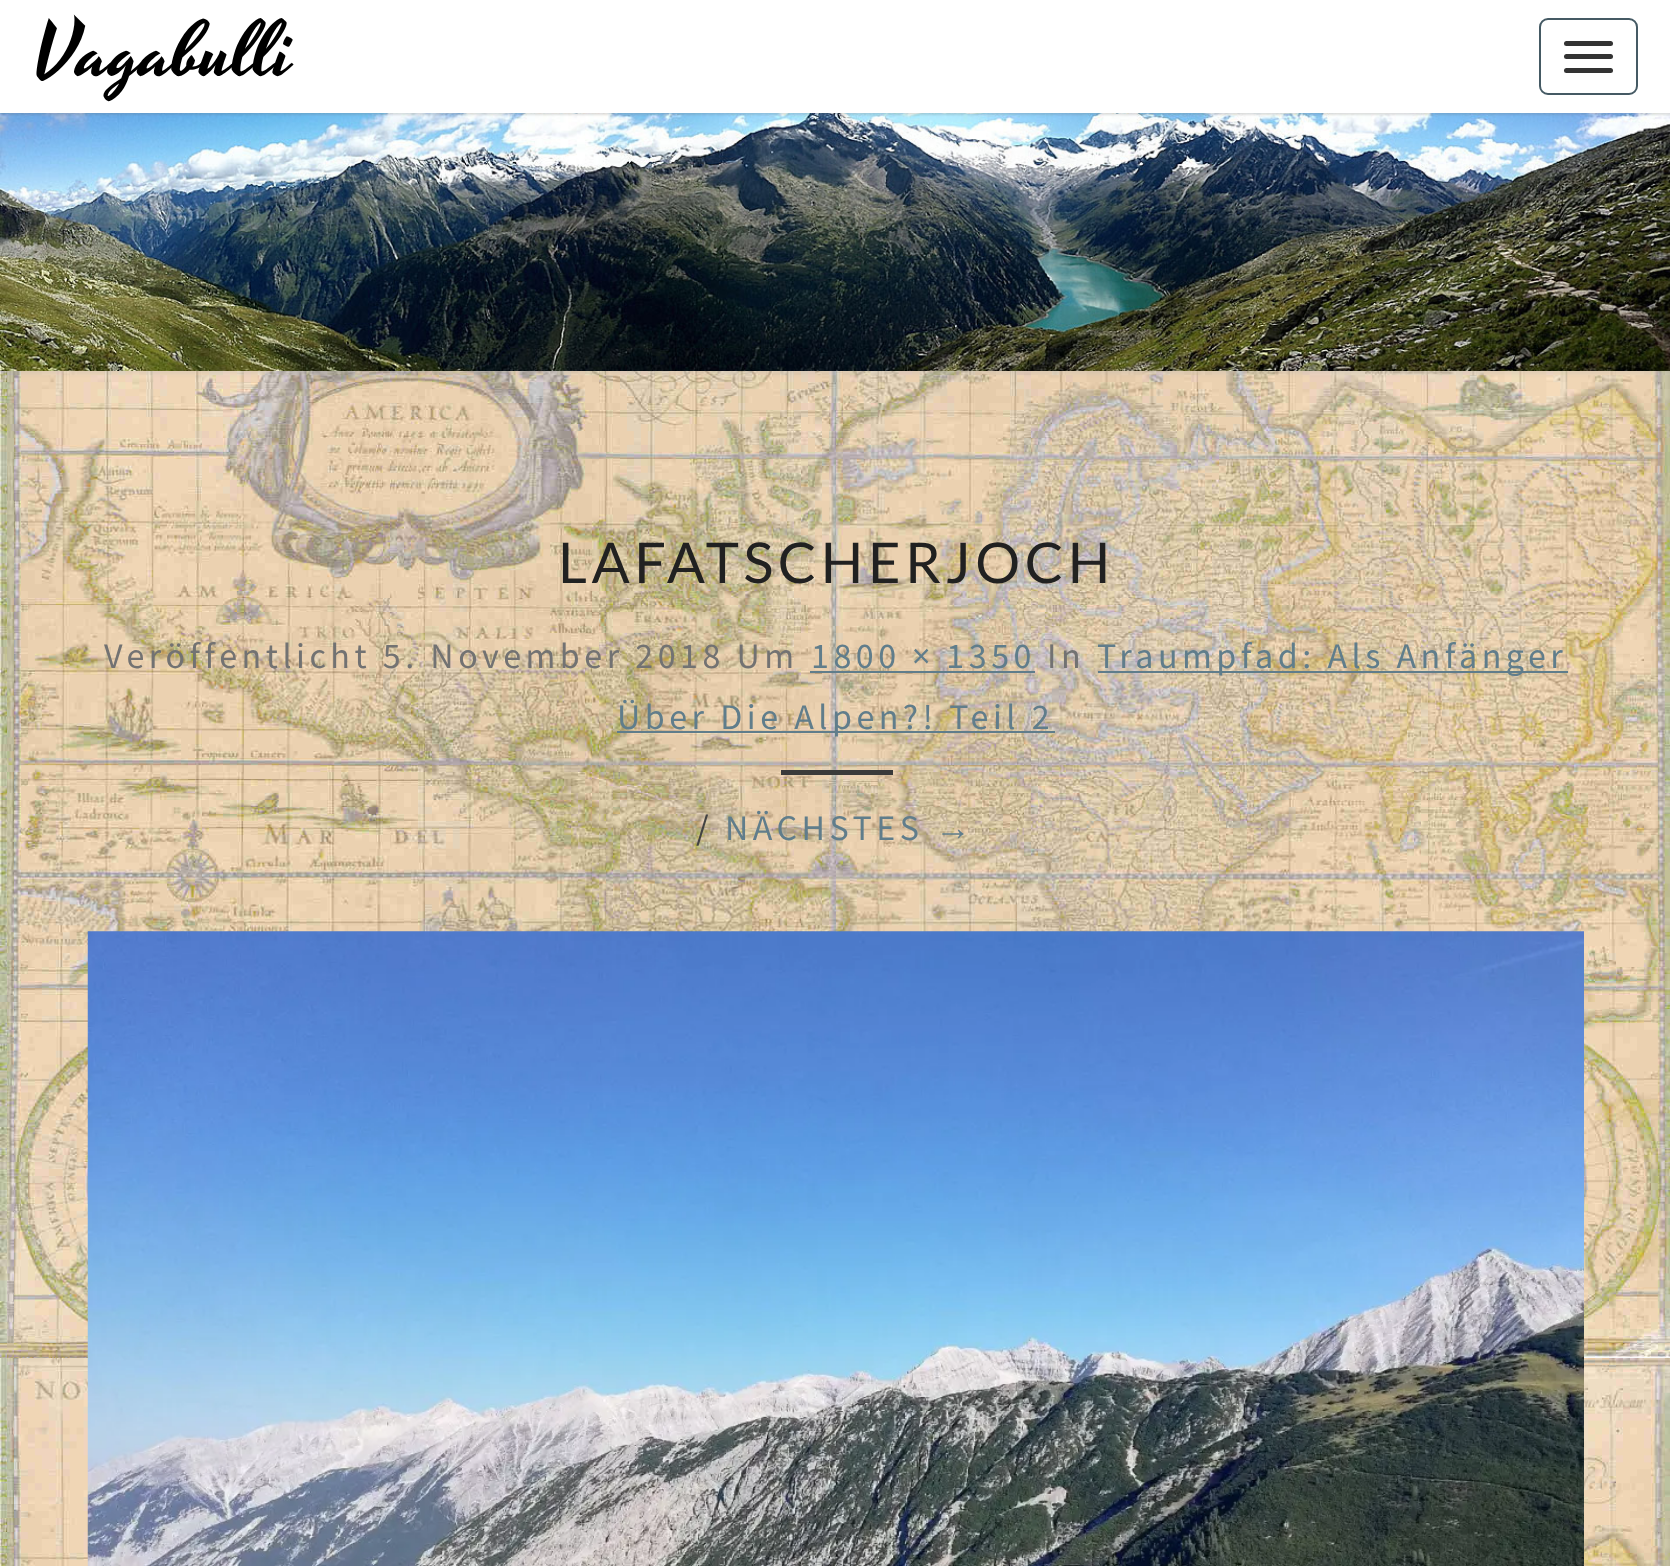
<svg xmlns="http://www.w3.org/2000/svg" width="1670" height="1566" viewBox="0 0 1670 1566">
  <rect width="100%" height="100%" fill="rgb(255,255,255)"/>
  <image x="0" y="371" width="1670" height="1195" href="pic1.png"/>
  <rect x="-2" y="-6" width="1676" height="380" fill="rgba(182,182,182,0.3)" filter="blur(2px)"/>
  <image x="0" y="113" width="1670" height="258" href="pic2.png"/>
  <rect x="0" y="2" width="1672" height="113" fill="rgba(100,100,100,0.2)" filter="blur(1px)"/>
  <rect x="0" y="0" width="1670" height="113" fill="rgb(255,255,255)"/>
  <text x="34" y="74" font-family="Yesteryear" font-size="79" fill="rgb(0,0,0)">Vagabulli</text>
  <rect x="1540" y="19" width="97" height="75" rx="8" fill="none" stroke="rgb(69,90,100)" stroke-width="2"/>
  <rect x="1564" y="41" width="49" height="5" rx="2.5" fill="rgb(51,51,51)"/>
  <rect x="1564" y="54" width="49" height="5" rx="2.5" fill="rgb(51,51,51)"/>
  <rect x="1564" y="68" width="49" height="5" rx="2.5" fill="rgb(51,51,51)"/>
  <text x="558" y="583" font-family="Lato" font-size="56.25" letter-spacing="4.5" fill="rgb(33,33,33)">LAFATSCHERJOCH</text>
  <text x="104" y="668" font-family="Source Sans Pro" font-size="36" letter-spacing="4.5" fill="rgb(114,114,114)">Veröffentlicht 5. November 2018 Um</text>
  <text x="811" y="668" font-family="Source Sans Pro" font-size="36" letter-spacing="4.5" fill="rgb(96,125,139)">1800 × 1350</text>
  <rect x="810" y="671" width="225" height="2" fill="rgb(96,125,139)"/>
  <text x="1047" y="668" font-family="Source Sans Pro" font-size="36" letter-spacing="4.5" fill="rgb(114,114,114)">In</text>
  <rect x="1098" y="671" width="470" height="2" fill="rgb(96,125,139)"/>
  <text x="1097" y="668" font-family="Source Sans Pro" font-size="36" letter-spacing="4.5" fill="rgb(96,125,139)">Traumpfad: Als Anfänger</text>
  <rect x="617" y="731" width="438" height="2" fill="rgb(96,125,139)"/>
  <text x="617" y="729" font-family="Source Sans Pro" font-size="36" letter-spacing="4.5" fill="rgb(96,125,139)">Über Die Alpen?! Teil 2</text>
  <rect x="781" y="770" width="112" height="5" fill="rgb(58,58,58)"/>
  <text x="696" y="840" font-family="Source Sans Pro" font-size="36" letter-spacing="4.5" fill="rgb(66,66,66)">/</text>
  <text x="725" y="840" font-family="Source Sans Pro" font-size="36" letter-spacing="4.5" fill="rgb(96,125,139)">NÄCHSTES</text>
  <text x="935" y="840" font-family="Liberation Sans" font-size="36" letter-spacing="4.5" fill="rgb(96,125,139)">→</text>
  <image x="87" y="931" width="1497" height="635" href="pic3.png"/>
</svg>
